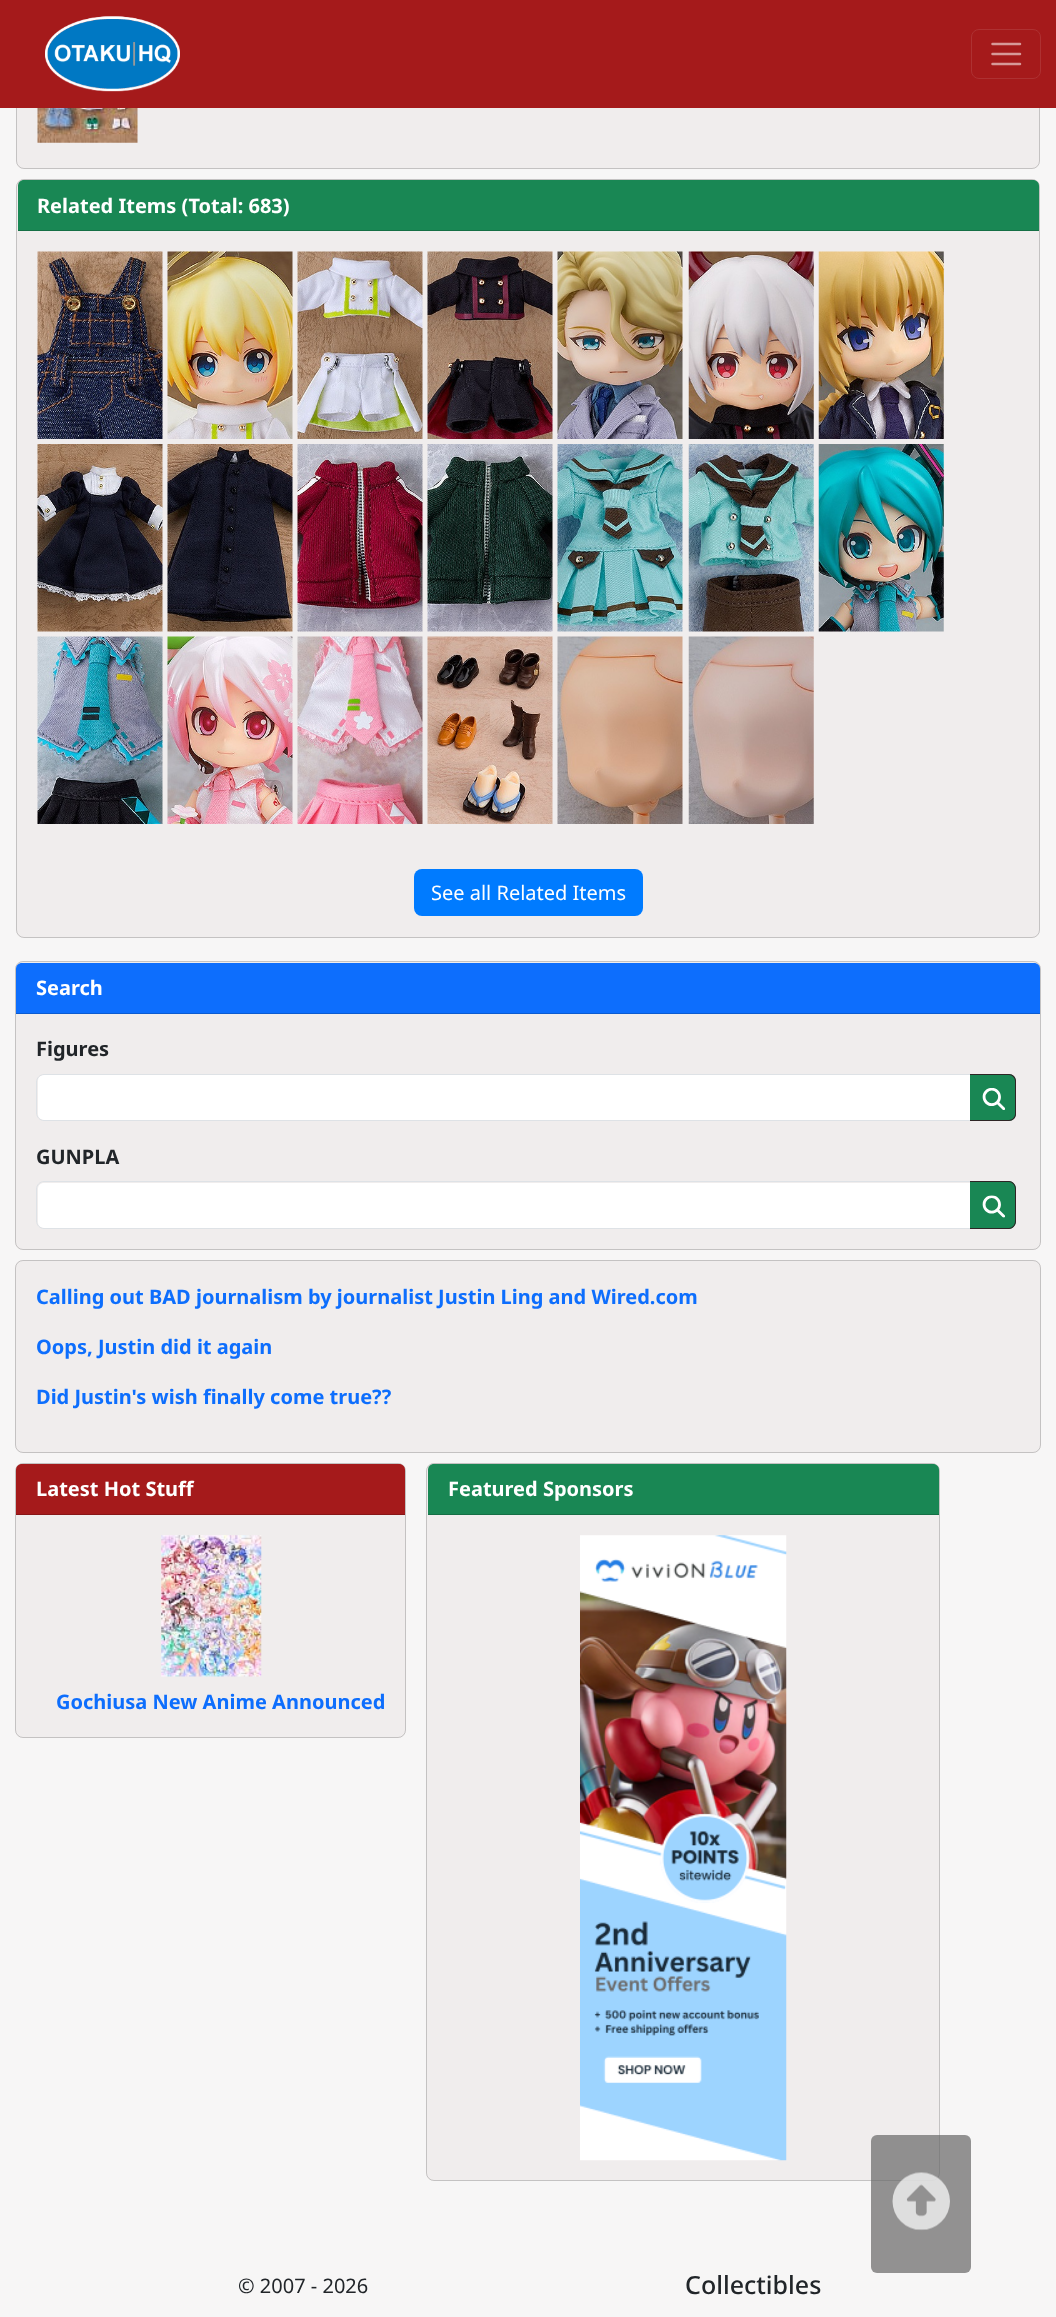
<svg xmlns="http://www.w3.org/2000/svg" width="1056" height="2317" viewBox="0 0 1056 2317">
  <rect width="100%" height="100%" fill="rgb(247,246,246)"/>
  <rect x="16" y="1" width="1024" height="168" rx="8" fill="rgb(240,237,237)"/>
  <rect x="16.5" y="1.5" width="1023" height="167" rx="7.5" fill="none" stroke="rgba(0,0,0,0.18)"/>
  <rect x="0" y="0" width="1056" height="108" fill="rgb(165,26,27)"/>
  <image x="45" y="16" width="135" height="76" href="pic1.png"/>
  <rect x="971.5" y="29.5" width="69" height="49" rx="7.5" fill="none" stroke="rgb(174,49,50)"/>
  <path d="M992.5 44H1020M992.5 54H1020M992.5 64H1020" fill="none" stroke="rgb(215,152,152)" stroke-width="2.5" stroke-linecap="round"/>
  <image x="37" y="108" width="101" height="35" href="pic2.png"/>
  <rect x="16" y="179" width="1024" height="759" rx="8" fill="rgb(240,237,237)"/>
  <rect x="16.5" y="179.5" width="1023" height="758" rx="7.5" fill="none" stroke="rgba(0,0,0,0.18)"/>
  <path d="M24 180H1033C1036.5 180 1039 182.5 1039 186V231H18V186C18 182.5 20.5 180 24 180Z" fill="rgb(25,135,84)"/>
  <rect x="18" y="230" width="1021" height="1" fill="rgb(21,111,69)"/>
  <text x="37" y="213" font-family="Noto Sans" font-size="20" font-weight="bold" fill="rgb(255,255,255)">Related Items (Total: 683)</text>
  <image x="37" y="251" width="126" height="188" href="pic3.png"/>
  <image x="167" y="251" width="126" height="188" href="pic4.png"/>
  <image x="297" y="251" width="126" height="188" href="pic5.png"/>
  <image x="427" y="251" width="126" height="188" href="pic6.png"/>
  <image x="557" y="251" width="126" height="188" href="pic7.png"/>
  <image x="688" y="251" width="126" height="188" href="pic8.png"/>
  <image x="818" y="251" width="126" height="188" href="pic9.png"/>
  <image x="37" y="444" width="126" height="188" href="pic10.png"/>
  <image x="167" y="444" width="126" height="188" href="pic11.png"/>
  <image x="297" y="444" width="126" height="188" href="pic12.png"/>
  <image x="427" y="444" width="126" height="188" href="pic13.png"/>
  <image x="557" y="444" width="126" height="188" href="pic14.png"/>
  <image x="688" y="444" width="126" height="188" href="pic15.png"/>
  <image x="818" y="444" width="126" height="188" href="pic16.png"/>
  <image x="37" y="636" width="126" height="188" href="pic17.png"/>
  <image x="167" y="636" width="126" height="188" href="pic18.png"/>
  <image x="297" y="636" width="126" height="188" href="pic19.png"/>
  <image x="427" y="636" width="126" height="188" href="pic20.png"/>
  <image x="557" y="636" width="126" height="188" href="pic21.png"/>
  <image x="688" y="636" width="126" height="188" href="pic22.png"/>
  <rect x="414" y="869" width="229" height="47" rx="8" fill="rgb(0,123,255)"/>
  <text x="431" y="900" font-family="Noto Sans" font-size="20" fill="rgb(255,255,255)">See all Related Items</text>
  <rect x="15" y="961" width="1026" height="289" rx="8" fill="rgb(240,237,237)"/>
  <rect x="15.5" y="961.5" width="1025" height="288" rx="7.5" fill="none" stroke="rgba(0,0,0,0.18)"/>
  <path d="M22 963H1034C1037.5 963 1040 965.5 1040 969V1014H16V969C16 965.5 18.5 963 22 963Z" fill="rgb(13,110,253)"/>
  <rect x="16" y="1013" width="1024" height="1" fill="rgb(11,91,208)"/>
  <text x="36" y="995" font-family="Noto Sans" font-size="20" font-weight="bold" fill="rgb(255,255,255)">Search</text>
  <text x="36" y="1056" font-family="Noto Sans" font-size="20" font-weight="bold" fill="rgb(33,37,41)">Figures</text>
  <path d="M44 1075H970V1120H44C40.5 1120 38 1117.5 38 1114V1081C38 1077.5 40.5 1075 44 1075Z" fill="rgb(255,255,255)"/>
  <path d="M44 1074.5H970.5V1120.5H44C40 1120.5 36.5 1117 36.5 1113V1082C36.5 1078 40 1074.5 44 1074.5Z" fill="none" stroke="rgb(222,226,230)"/>
  <path d="M970 1074H1008C1012.5 1074 1016 1077.5 1016 1082V1113C1016 1117.5 1012.5 1121 1008 1121H970Z" fill="rgb(25,135,84)"/>
  <path d="M970 1074H1009C1013 1074 1016 1077 1016 1081V1114C1016 1118 1013 1121 1009 1121H970ZM970 1075H1009C1012 1075 1015 1078 1015 1081V1114C1015 1117 1012 1120 1009 1120H970Z" fill="rgb(46,37,37)" fill-rule="evenodd"/>
  <image x="982" y="1088" width="23" height="22" href="pic23.png"/>
  <text x="36" y="1164" font-family="Noto Sans" font-size="20" font-weight="bold" fill="rgb(33,37,41)">GUNPLA</text>
  <path d="M44 1183H970V1228H44C40.5 1228 38 1225.5 38 1222V1189C38 1185.5 40.5 1183 44 1183Z" fill="rgb(255,255,255)"/>
  <path d="M44 1181.5H970.5V1228.5H44C40 1228.5 36.5 1225 36.5 1221V1189C36.5 1185 40 1181.5 44 1181.5Z" fill="none" stroke="rgb(222,226,230)"/>
  <path d="M970 1181H1008C1012.5 1181 1016 1184.5 1016 1189V1221C1016 1225.5 1012.5 1229 1008 1229H970Z" fill="rgb(25,135,84)"/>
  <path d="M970 1181H1009C1013 1181 1016 1185 1016 1189V1221C1016 1225 1013 1229 1009 1229H970ZM970 1182H1009C1012 1182 1015 1185 1015 1189V1221C1015 1225 1012 1228 1009 1228H970Z" fill="rgb(46,37,37)" fill-rule="evenodd"/>
  <image x="982" y="1195" width="23" height="23" href="pic24.png"/>
  <rect x="15" y="1260" width="1026" height="193" rx="8" fill="rgb(240,237,237)"/>
  <rect x="15.5" y="1260.5" width="1025" height="192" rx="7.5" fill="none" stroke="rgba(0,0,0,0.18)"/>
  <g font-family="Noto Sans" font-size="20" font-weight="bold" fill="rgb(13,110,253)">
    <text x="36" y="1304">Calling out BAD journalism by journalist Justin Ling and Wired.com</text>
    <text x="36" y="1354">Oops, Justin did it again</text>
    <text x="36" y="1404">Did Justin's wish finally come true??</text>
  </g>
  <rect x="15" y="1463" width="391" height="275" rx="8" fill="rgb(240,237,237)"/>
  <rect x="15.5" y="1463.5" width="390" height="274" rx="7.5" fill="none" stroke="rgba(0,0,0,0.18)"/>
  <path d="M22 1464H399C402.5 1464 405 1466.5 405 1470V1515H16V1470C16 1466.5 18.5 1464 22 1464Z" fill="rgb(165,26,27)"/>
  <rect x="16" y="1514" width="389" height="1" fill="rgb(136,21,22)"/>
  <text x="36" y="1496" font-family="Noto Sans" font-size="20" font-weight="bold" fill="rgb(255,255,255)">Latest Hot Stuff</text>
  <image x="161" y="1535" width="101" height="142" href="pic25.png"/>
  <text x="56" y="1709" font-family="Noto Sans" font-size="20" font-weight="bold" fill="rgb(13,110,253)">Gochiusa New Anime Announced</text>
  <rect x="426" y="1463" width="514" height="718" rx="8" fill="rgb(240,237,237)"/>
  <rect x="426.5" y="1463.5" width="513" height="717" rx="7.5" fill="none" stroke="rgba(0,0,0,0.18)"/>
  <path d="M434 1464H933C936.5 1464 939 1466.5 939 1470V1515H428V1470C428 1466.5 430.5 1464 434 1464Z" fill="rgb(25,135,84)"/>
  <rect x="428" y="1514" width="511" height="1" fill="rgb(21,111,69)"/>
  <text x="448" y="1496" font-family="Noto Sans" font-size="20" font-weight="bold" fill="rgb(255,255,255)">Featured Sponsors</text>
  <image x="580" y="1535" width="207" height="626" href="pic26.png"/>
  <rect x="871" y="2135" width="100" height="138" rx="6" fill="rgba(102,102,102,0.7)"/>
  <image x="892" y="2172" width="58" height="59" href="pic27.png"/>
  <text x="238" y="2293" font-family="Noto Sans" font-size="20" fill="rgb(33,37,41)">© 2007 - 2026</text>
  <text x="685" y="2294" font-family="Noto Sans" font-size="25" font-weight="500" fill="rgb(33,37,41)">Collectibles</text>
</svg>
